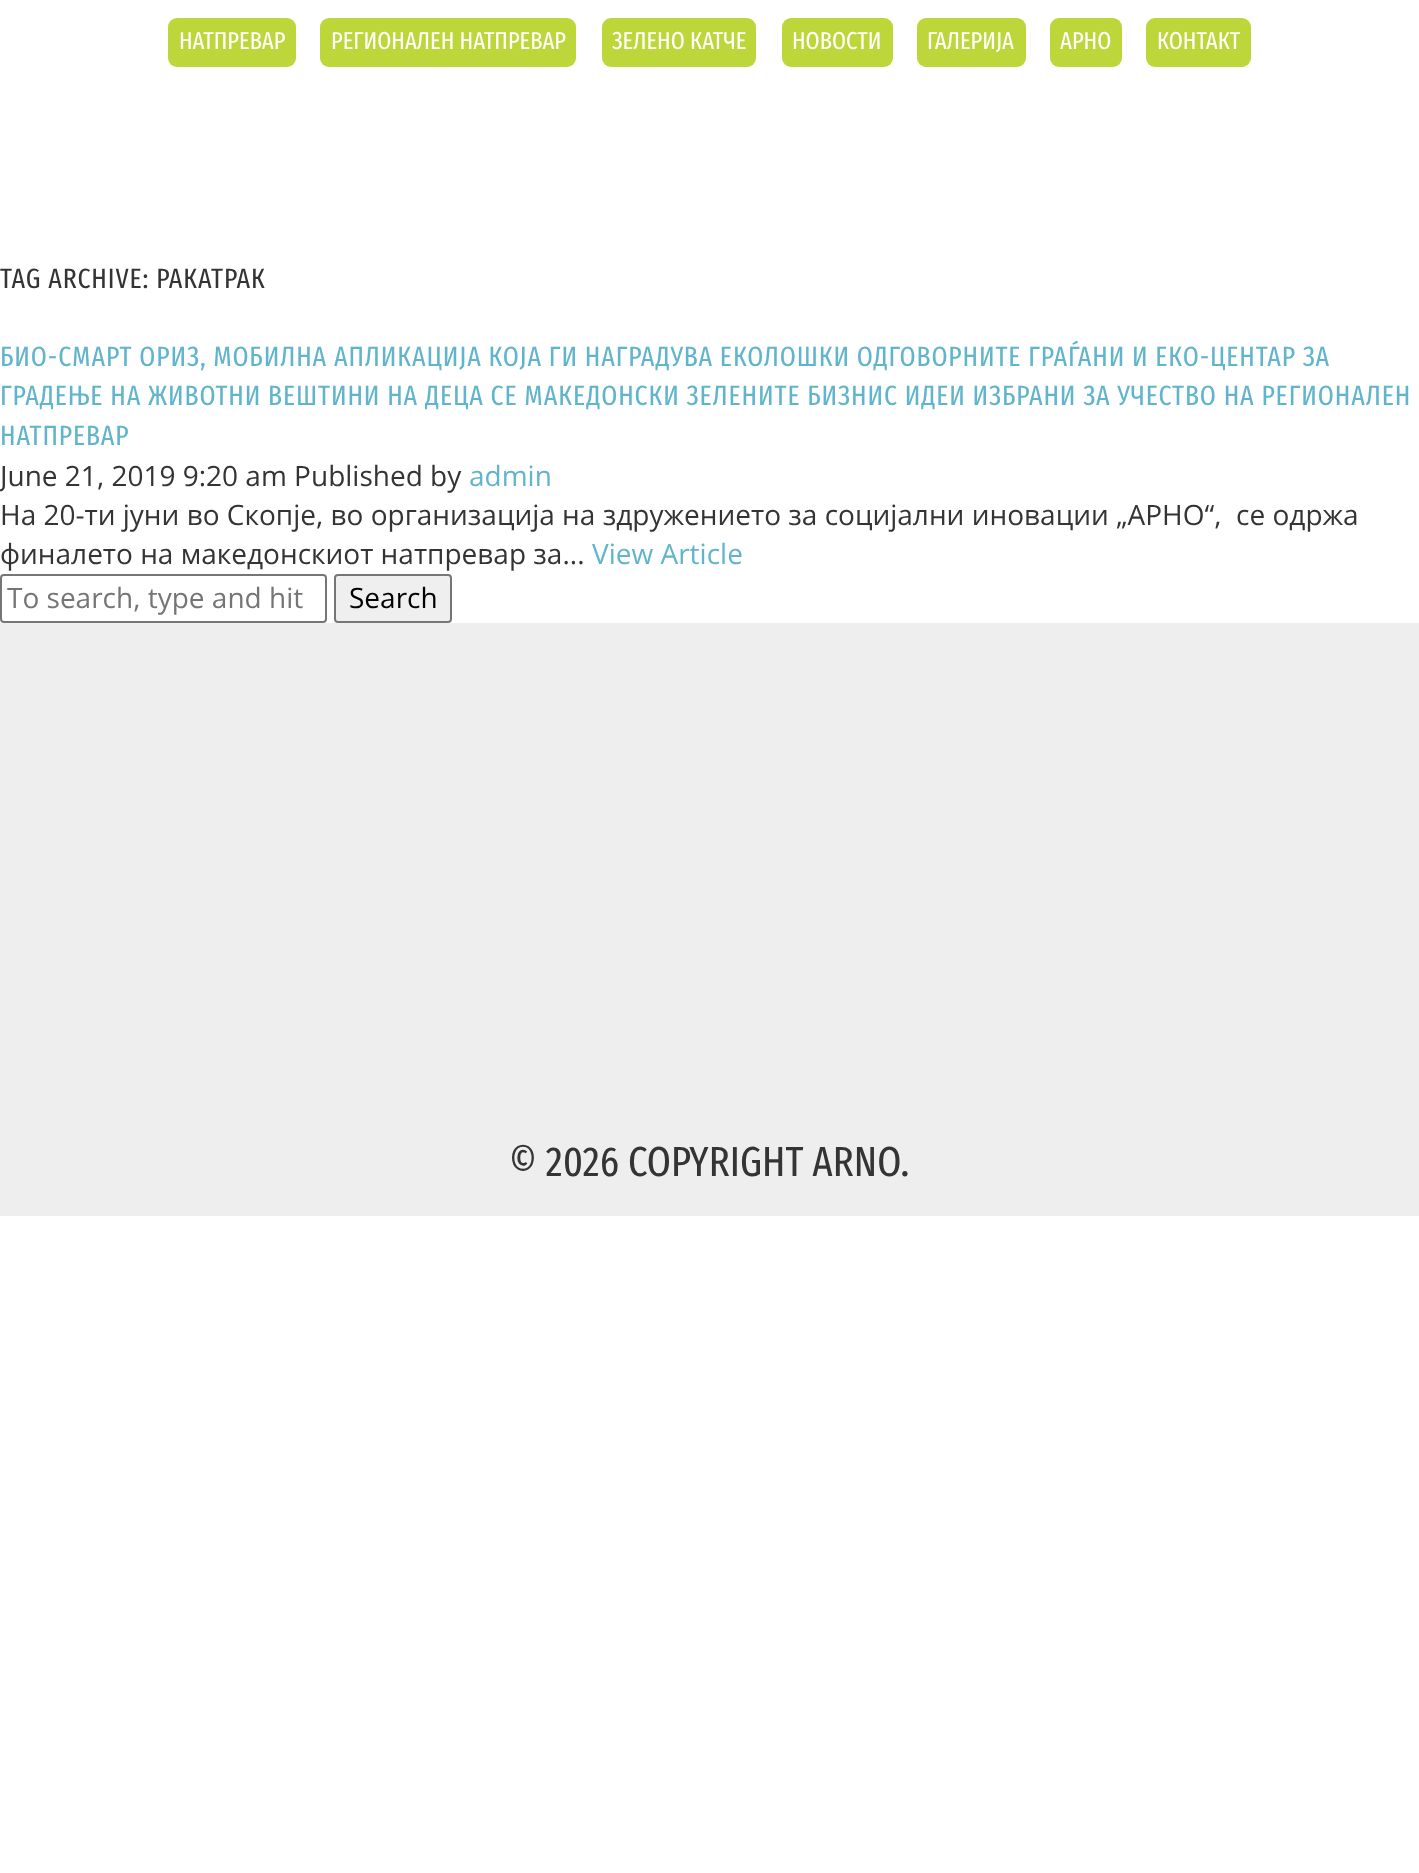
<svg xmlns="http://www.w3.org/2000/svg" width="1419" height="1873" viewBox="0 0 1419 1873">
  <rect width="100%" height="100%" fill="rgb(255,255,255)"/>
  <rect x="168" y="18" width="128" height="49" rx="9" fill="rgb(189,214,58)"/>
  <text x="179" y="49" font-family="Fira Sans Extra Condensed" font-size="24.5" fill="rgb(255,255,255)">НАТПРЕВАР</text>
  <rect x="320" y="18" width="256" height="49" rx="9" fill="rgb(189,214,58)"/>
  <text x="331" y="49" font-family="Fira Sans Extra Condensed" font-size="24.5" fill="rgb(255,255,255)">РЕГИОНАЛЕН НАТПРЕВАР</text>
  <rect x="602" y="18" width="154" height="49" rx="9" fill="rgb(189,214,58)"/>
  <text x="612" y="49" font-family="Fira Sans Extra Condensed" font-size="24.5" fill="rgb(255,255,255)">ЗЕЛЕНО КАТЧЕ</text>
  <rect x="782" y="18" width="111" height="49" rx="9" fill="rgb(189,214,58)"/>
  <text x="792" y="49" font-family="Fira Sans Extra Condensed" font-size="24.5" fill="rgb(255,255,255)">НОВОСТИ</text>
  <rect x="917" y="18" width="109" height="49" rx="9" fill="rgb(189,214,58)"/>
  <text x="927" y="49" font-family="Fira Sans Extra Condensed" font-size="24.5" fill="rgb(255,255,255)">ГАЛЕРИЈА</text>
  <rect x="1050" y="18" width="72" height="49" rx="9" fill="rgb(189,214,58)"/>
  <text x="1060" y="49" font-family="Fira Sans Extra Condensed" font-size="24.5" fill="rgb(255,255,255)">АРНО</text>
  <rect x="1146" y="18" width="105" height="49" rx="9" fill="rgb(189,214,58)"/>
  <text x="1157" y="49" font-family="Fira Sans Extra Condensed" font-size="24.5" fill="rgb(255,255,255)">КОНТАКТ</text>
  <text x="0" y="288" font-family="Fira Sans Extra Condensed" font-size="28" letter-spacing="0.88" fill="rgb(52,52,52)">TAG ARCHIVE: РАКАТРАК</text>
  <g font-family="Fira Sans Extra Condensed" font-size="28" letter-spacing="0.88" fill="rgb(96,181,204)">
    <text>
      <tspan x="0" y="366">БИО-СМАРТ ОРИЗ, МОБИЛНА АПЛИКАЦИЈА КОЈА ГИ НАГРАДУВА ЕКОЛОШКИ ОДГОВОРНИТЕ ГРАЃАНИ И ЕКО-ЦЕНТАР ЗА</tspan>
      <tspan x="0" y="405">ГРАДЕЊЕ НА ЖИВОТНИ ВЕШТИНИ НА ДЕЦА СЕ МАКЕДОНСКИ ЗЕЛЕНИТЕ БИЗНИС ИДЕИ ИЗБРАНИ ЗА УЧЕСТВО НА РЕГИОНАЛЕН</tspan>
      <tspan x="0" y="445">НАТПРЕВАР</tspan>
    </text>
  </g>
  <text x="0" y="486" font-family="Open Sans" font-size="28" fill="rgb(52,52,52)">June 21, 2019 9:20 am Published by</text>
  <text x="469" y="486" font-family="Open Sans" font-size="28" fill="rgb(96,181,204)">admin</text>
  <g font-family="Open Sans" font-size="28" fill="rgb(52,52,52)">
    <text xml:space="preserve"><tspan x="0" y="525">На 20-ти јуни во Скопје, во организација на здружението за социјални иновации „АРНО“,  се одржа</tspan><tspan x="0" y="564">финалето на македонскиот натпревар за...</tspan></text>
  </g>
  <text x="592" y="564" font-family="Open Sans" font-size="28" fill="rgb(96,181,204)">View Article</text>
  <rect x="1" y="575" width="325" height="47" rx="3" fill="none" stroke="rgb(118,118,118)" stroke-width="2"/>
  <text x="7" y="608" font-family="Open Sans" font-size="28" fill="rgb(117,117,117)">To search, type and hit</text>
  <rect x="335" y="575" width="116" height="47" rx="3" fill="rgb(239,239,239)" stroke="rgb(118,118,118)" stroke-width="2"/>
  <text x="349" y="608" font-family="Open Sans" font-size="28" fill="rgb(0,0,0)">Search</text>
  <rect x="0" y="623" width="1419" height="593" fill="rgb(238,238,238)"/>
  <text x="509" y="1176" font-family="Fira Sans Extra Condensed" font-size="42" fill="rgb(52,52,52)">© 2026 COPYRIGHT ARNO.</text>
</svg>
